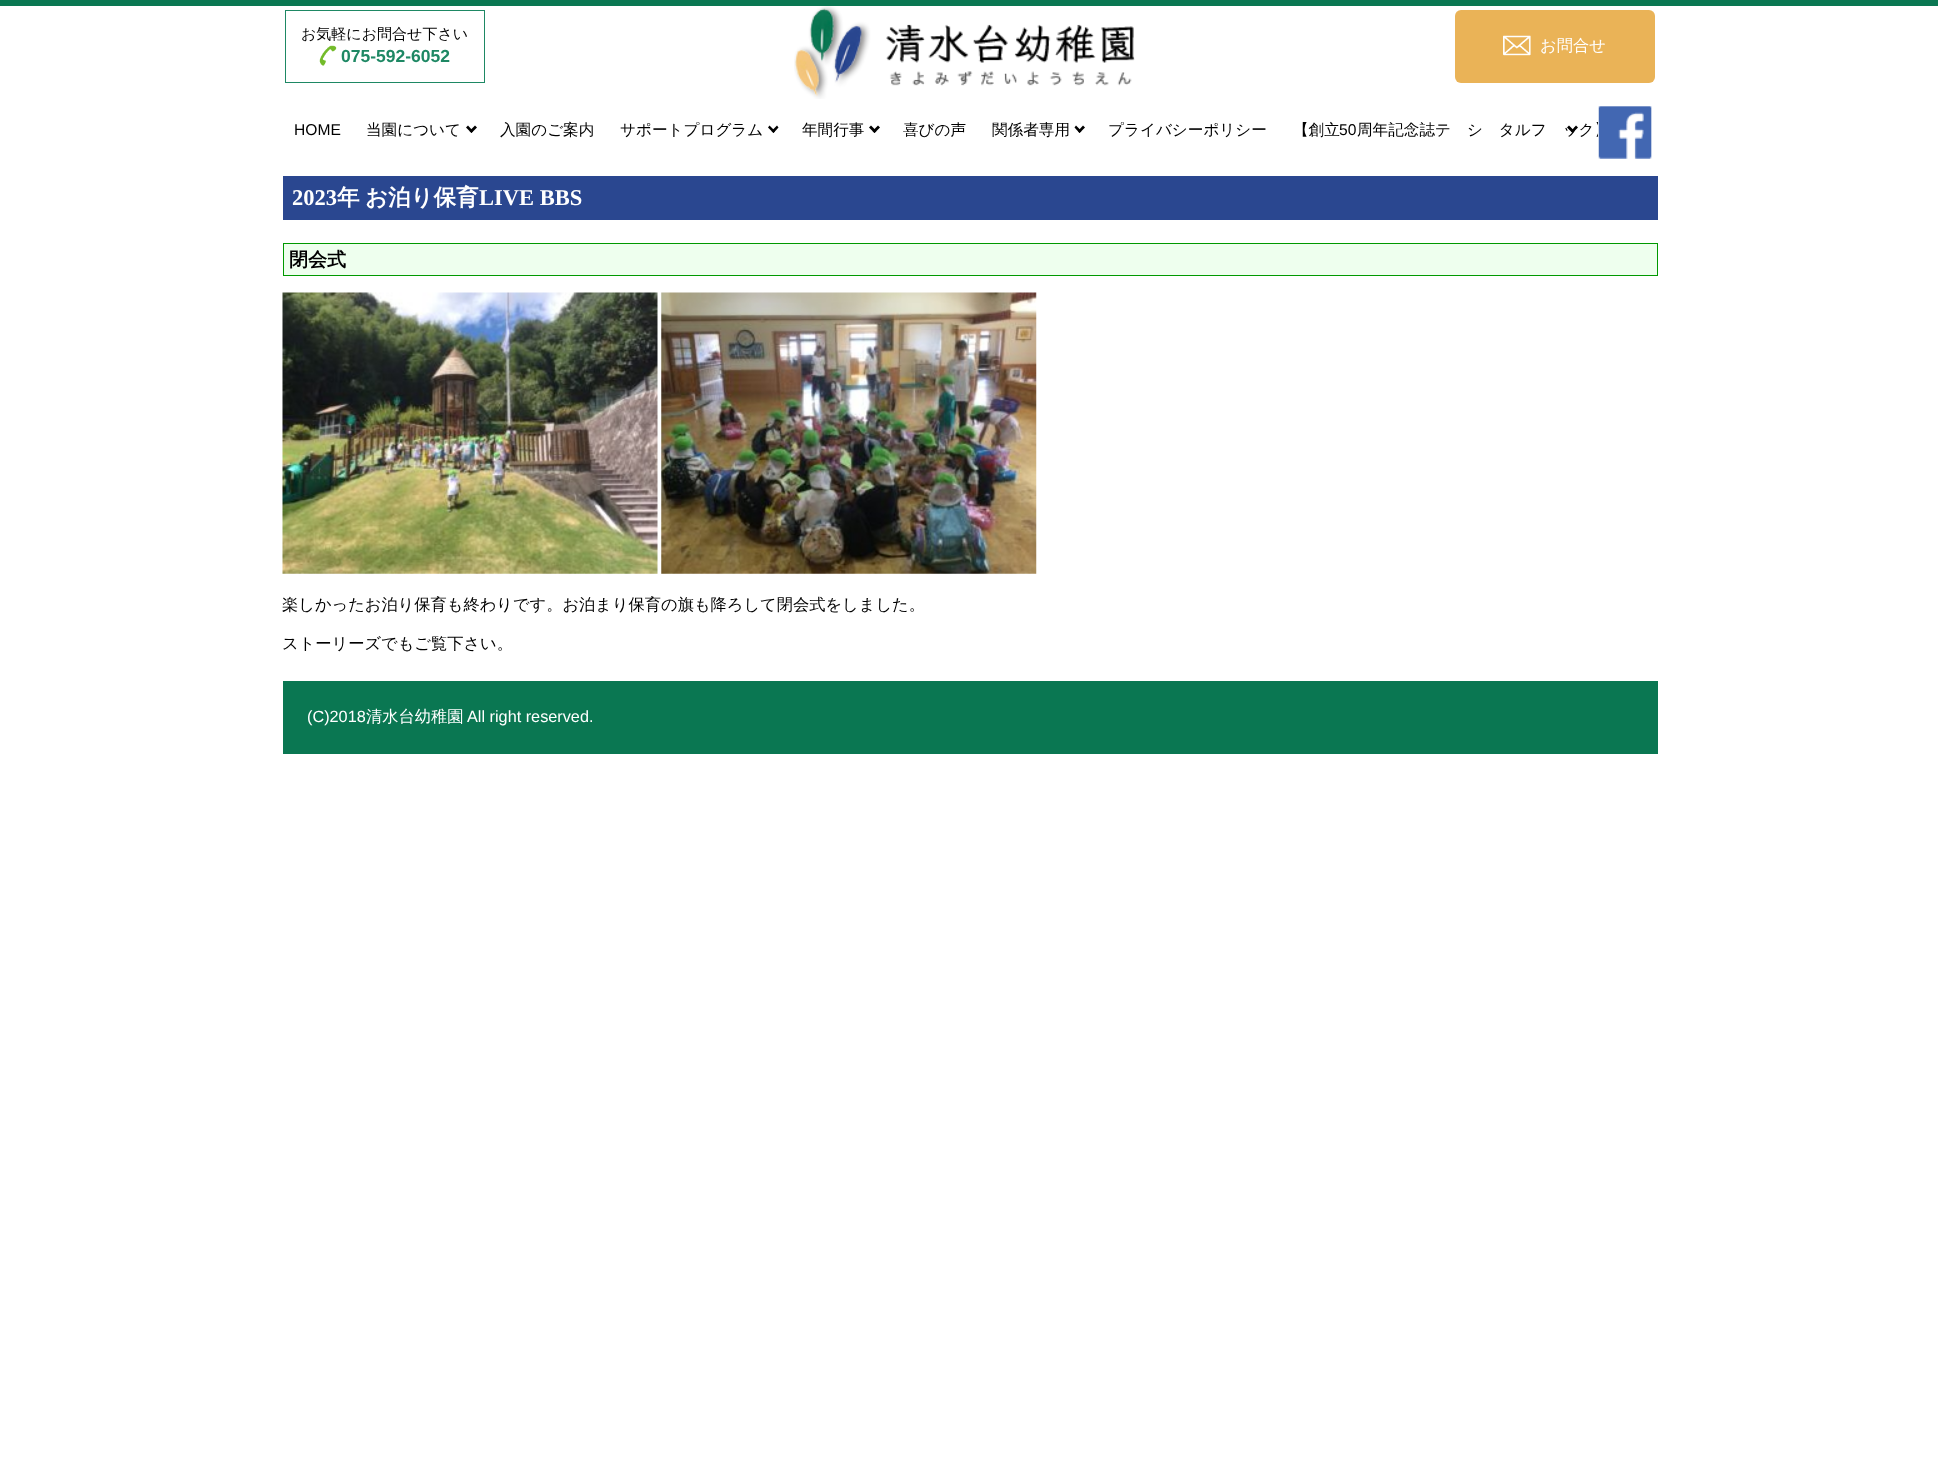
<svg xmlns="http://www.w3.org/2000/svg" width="1938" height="1482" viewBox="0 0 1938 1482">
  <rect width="100%" height="100%" fill="rgb(255,255,255)"/>
  <rect x="0" y="0" width="1938" height="6" fill="rgb(10,119,82)"/>
  <image x="794" y="6" width="341" height="93" href="pic1.png"/>
  <rect x="285.5" y="10.5" width="199" height="72" fill="none" stroke="rgb(30,136,100)"/>
  <text x="301" y="39" font-family="WenQuanYi Zen Hei" font-size="15" font-weight="500" fill="rgb(0,0,0)">お気軽にお問合せ下さい</text>
  <image x="319" y="45" width="18" height="21" href="pic2.png"/>
  <text x="341" y="62" font-family="Liberation Sans" font-size="17.5" font-weight="bold" fill="rgb(30,136,100)">075-592-6052</text>
  <rect x="1455" y="10" width="200" height="73" rx="6" fill="rgb(234,179,87)"/>
  <image x="1503" y="35" width="28" height="21" href="pic3.png"/>
  <text x="1540" y="51" font-family="WenQuanYi Zen Hei" font-size="16.25" font-weight="500" fill="rgb(255,255,255)">お問合せ</text>
  <text x="294" y="135" font-family="Liberation Sans" font-size="15.6" fill="rgb(0,0,0)">HOME</text>
  <text x="366" y="135" font-family="WenQuanYi Zen Hei" font-size="15.6" font-weight="500" fill="rgb(0,0,0)">当園について</text>
  <path d="M469.5 131L475 125.5L477 127.5L471.5 133Z" fill="rgb(0,0,0)"/>
  <path d="M466 127.5L468 125.5L473 131L471.5 133Z" fill="rgb(0,0,0)"/>
  <g font-family="WenQuanYi Zen Hei" font-size="15.6" font-weight="500" fill="rgb(0,0,0)">
    <text x="500" y="135">入園のご案内</text>
    <text x="620" y="135">サポートプログラム</text>
  </g>
  <path d="M771.5 131L777 125.5L778.5 127.5L773.5 133Z" fill="rgb(0,0,0)"/>
  <path d="M768 127.5L769.5 125.5L775 131L773.5 133Z" fill="rgb(0,0,0)"/>
  <text x="802" y="135" font-family="WenQuanYi Zen Hei" font-size="15.6" font-weight="500" fill="rgb(0,0,0)">年間行事</text>
  <path d="M872.5 131L878 125.5L880 127.5L874.5 133Z" fill="rgb(0,0,0)"/>
  <path d="M869 127.5L871 125.5L876.5 131L874.5 133Z" fill="rgb(0,0,0)"/>
  <g font-family="WenQuanYi Zen Hei" font-size="15.6" font-weight="500" fill="rgb(0,0,0)">
    <text x="903" y="135">喜びの声</text>
    <text x="992" y="135">関係者専用</text>
  </g>
  <path d="M1078 131L1083 125.5L1085 127.5L1079.5 133Z" fill="rgb(0,0,0)"/>
  <path d="M1074.5 127.5L1076 125.5L1081.5 131L1079.5 133Z" fill="rgb(0,0,0)"/>
  <g font-family="WenQuanYi Zen Hei" font-size="15.6" font-weight="500" fill="rgb(0,0,0)">
    <text x="1108" y="135">プライバシーポリシー</text>
    <text x="1293" y="135">【創立</text>
  </g>
  <text x="1339" y="135" font-family="Liberation Sans" font-size="15.6" fill="rgb(0,0,0)">50</text>
  <text x="1357" y="135" font-family="WenQuanYi Zen Hei" font-size="15.6" font-weight="500" fill="rgb(0,0,0)">周年記念誌デジタルブック】</text>
  <path d="M1571 131L1576 125.5L1578 127.5L1572.5 133Z" fill="rgb(0,0,0)"/>
  <path d="M1567 127.5L1569 125.5L1574.5 131L1572.5 133Z" fill="rgb(0,0,0)"/>
  <image x="1598" y="106" width="54" height="53" href="pic4.png"/>
  <rect x="283" y="176" width="1375" height="44" fill="rgb(42,71,144)"/>
  <text x="292" y="205" font-family="Liberation Serif" font-size="22.5" font-weight="bold" fill="rgb(255,255,255)">2023</text>
  <g font-family="WenQuanYi Zen Hei" font-size="22.5" font-weight="bold" fill="rgb(255,255,255)">
    <text x="337" y="205">年</text>
    <text x="365" y="205">お泊り保育</text>
  </g>
  <text x="479" y="205" font-family="Liberation Serif" font-size="22.5" font-weight="bold" fill="rgb(255,255,255)">LIVE BBS</text>
  <rect x="283.5" y="243.5" width="1374" height="32" fill="rgb(238,255,238)" stroke="rgb(0,153,0)"/>
  <text x="289" y="266" font-family="WenQuanYi Zen Hei" font-size="19" font-weight="bold" fill="rgb(0,0,0)">閉会式</text>
  <image x="282" y="292" width="376" height="282" href="pic5.png"/>
  <image x="661" y="292" width="376" height="282" href="pic6.png"/>
  <g font-family="WenQuanYi Zen Hei" font-size="16.25" font-weight="500" fill="rgb(0,0,0)">
    <text x="282" y="610">楽しかったお泊り保育も終わりです。お泊まり保育の旗も降ろして閉会式をしました。</text>
    <text x="282" y="649">ストーリーズでもご覧下さい。</text>
  </g>
  <rect x="283" y="681" width="1375" height="73" fill="rgb(10,119,82)"/>
  <text x="307" y="722" font-family="Liberation Sans" font-size="16.25" fill="rgb(255,255,255)">(C)2018</text>
  <text x="366" y="722" font-family="WenQuanYi Zen Hei" font-size="16.25" font-weight="500" fill="rgb(255,255,255)">清水台幼稚園</text>
  <text x="467" y="722" font-family="Liberation Sans" font-size="16.25" fill="rgb(255,255,255)">All right reserved.</text>
</svg>
